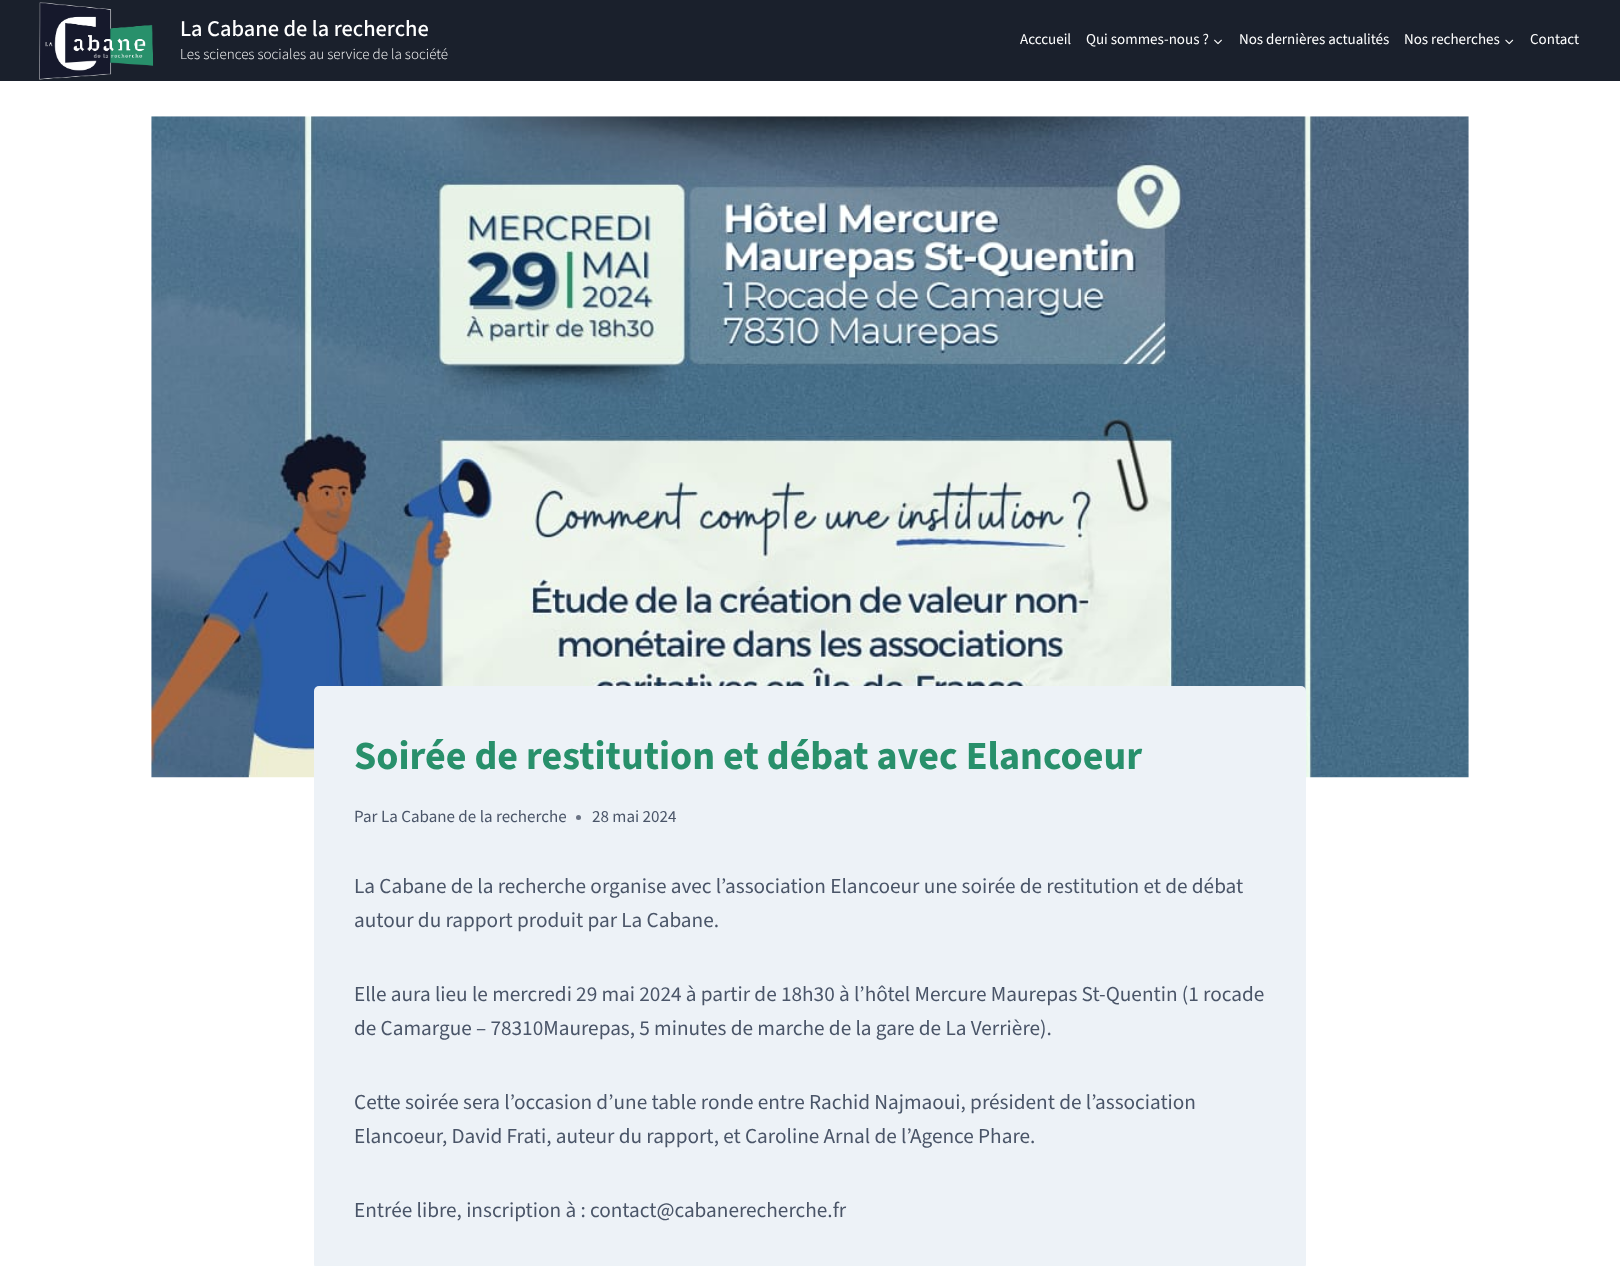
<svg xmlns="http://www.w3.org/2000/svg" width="1620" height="1266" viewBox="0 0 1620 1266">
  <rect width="100%" height="100%" fill="#ffffff"/>
  <rect x="0" y="0" width="1620" height="81" fill="#1a202c"/>
  <image x="39" y="2" width="115" height="78" href="img1.png"/>
  <text x="180" y="36" font-family="'Source Sans 3'" font-size="22.5" font-weight="500" fill="#ffffff">La Cabane de la recherche</text>
  <text x="180" y="59" font-family="'Source Sans 3'" font-size="15" font-weight="300" fill="#ffffff">Les sciences sociales au service de la société</text>
  <text x="1020" y="44" font-family="'Source Sans 3'" font-size="15" fill="#ffffff">Acccueil</text>
  <text x="1086" y="44" font-family="'Source Sans 3'" font-size="15" fill="#ffffff">Qui sommes-nous ?</text>
  <image x="1214" y="39" width="8" height="6" href="img2.png"/>
  <text x="1239" y="44" font-family="'Source Sans 3'" font-size="15" fill="#ffffff">Nos dernières actualités</text>
  <text x="1404" y="44" font-family="'Source Sans 3'" font-size="15" fill="#ffffff">Nos recherches</text>
  <image x="1505" y="39" width="9" height="6" href="img3.png"/>
  <text x="1530" y="44" font-family="'Source Sans 3'" font-size="15" fill="#ffffff">Contact</text>
  <image x="151" y="116" width="1318" height="662" href="img4.png"/>
  <rect x="314" y="686" width="992" height="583" rx="5" fill="#edf2f7"/>
  <text x="354" y="769" font-family="'Source Sans 3'" font-size="40" font-weight="bold" fill="#28906b">Soirée de restitution et débat avec Elancoeur</text>
  <text x="354" y="822" font-family="'Source Sans 3'" font-size="17" fill="#4a5568">Par</text>
  <text x="381" y="822" font-family="'Source Sans 3'" font-size="17" fill="#4a5568">La Cabane de la recherche</text>
  <circle cx="578.5" cy="817.5" r="2.5" fill="#6b7485"/>
  <text x="592" y="822" font-family="'Source Sans 3'" font-size="17" fill="#4a5568">28 mai 2024</text>
  <text x="354" y="893" font-family="'Source Sans 3'" font-size="21.25" fill="#4a5568">La Cabane de la recherche organise avec l’association Elancoeur une soirée de restitution et de débat</text>
  <text x="354" y="927" font-family="'Source Sans 3'" font-size="21.25" fill="#4a5568">autour du rapport produit par La Cabane.</text>
  <text x="354" y="1001" font-family="'Source Sans 3'" font-size="21.25" fill="#4a5568">Elle aura lieu le mercredi 29 mai 2024 à partir de 18h30 à l’hôtel Mercure Maurepas St-Quentin (1 rocade</text>
  <text x="354" y="1035" font-family="'Source Sans 3'" font-size="21.25" fill="#4a5568">de Camargue – 78310Maurepas, 5 minutes de marche de la gare de La Verrière).</text>
  <text x="354" y="1109" font-family="'Source Sans 3'" font-size="21.25" fill="#4a5568">Cette soirée sera l’occasion d’une table ronde entre Rachid Najmaoui, président de l’association</text>
  <text x="354" y="1143" font-family="'Source Sans 3'" font-size="21.25" fill="#4a5568">Elancoeur, David Frati, auteur du rapport, et Caroline Arnal de l’Agence Phare.</text>
  <text x="354" y="1217" font-family="'Source Sans 3'" font-size="21.25" fill="#4a5568">Entrée libre, inscription à : contact@cabanerecherche.fr</text>
</svg>
